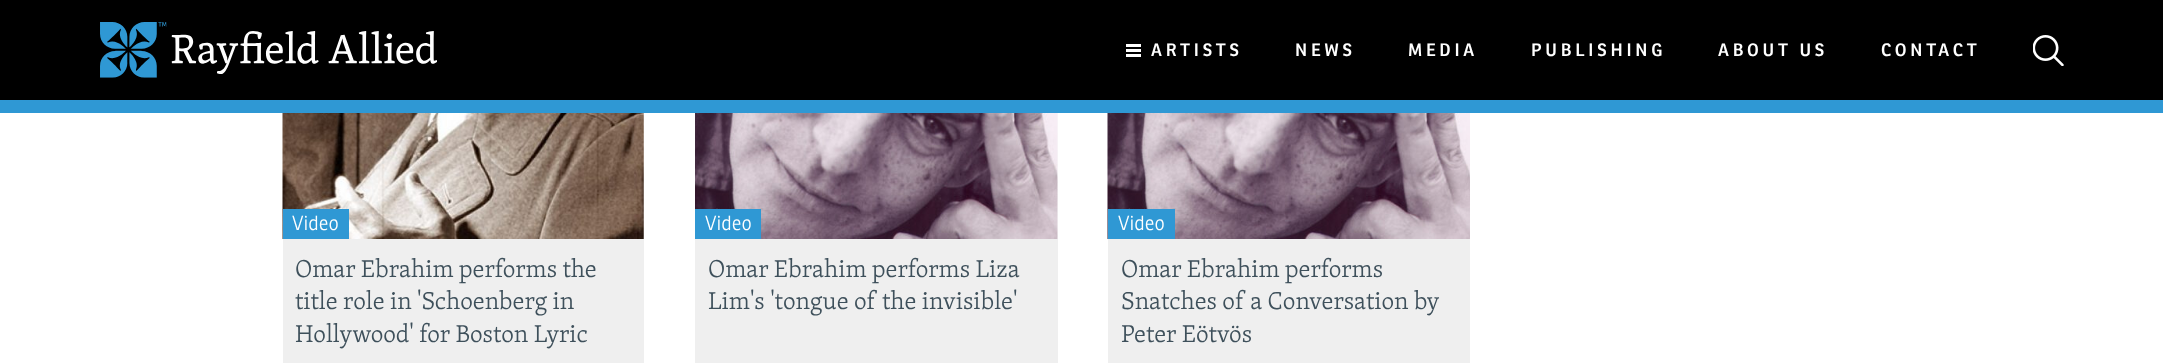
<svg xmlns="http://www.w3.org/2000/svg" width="2163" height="363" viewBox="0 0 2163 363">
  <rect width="100%" height="100%" fill="#ffffff"/>
  <rect x="0" y="0" width="2163" height="100" fill="#000000"/>
  <rect x="0" y="100" width="2163" height="13" fill="#2f98d4"/>
  <image x="100" y="22" width="337" height="56" href="img1.png"/>
  <rect x="1126" y="44" width="15" height="3" fill="#ffffff"/>
  <rect x="1126" y="54" width="15" height="3" fill="#ffffff"/>
  <rect x="1126" y="49" width="15" height="3" fill="#ffffff"/>
  <text x="1151" y="56" font-family="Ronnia" font-size="17.5" font-weight="600" letter-spacing="3.75" fill="#ffffff">ARTISTS</text>
  <text x="1295" y="56" font-family="Ronnia" font-size="17.5" font-weight="600" letter-spacing="3.75" fill="#ffffff">NEWS</text>
  <text x="1408" y="56" font-family="Ronnia" font-size="17.5" font-weight="600" letter-spacing="3.75" fill="#ffffff">MEDIA</text>
  <text x="1531" y="56" font-family="Ronnia" font-size="17.5" font-weight="600" letter-spacing="3.75" fill="#ffffff">PUBLISHING</text>
  <text x="1718" y="56" font-family="Ronnia" font-size="17.5" font-weight="600" letter-spacing="3.75" fill="#ffffff">ABOUT US</text>
  <text x="1881" y="56" font-family="Ronnia" font-size="17.5" font-weight="600" letter-spacing="3.75" fill="#ffffff">CONTACT</text>
  <image x="2033" y="35" width="31" height="31" href="img2.png"/>
  <image x="282" y="113" width="362" height="126" href="img3.png"/>
  <rect x="283" y="209" width="66" height="30" fill="#2f98d4"/>
  <text x="292" y="230" font-family="Ronnia" font-size="20" font-weight="300" fill="#ffffff">Video</text>
  <rect x="283" y="239" width="361" height="124" fill="#efefef"/>
  <text x="295" y="277" font-family="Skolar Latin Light" font-size="25" font-weight="300" fill="#3e505b">Omar Ebrahim performs the</text>
  <text x="295" y="309" font-family="Skolar Latin Light" font-size="25" font-weight="300" fill="#3e505b">title role in 'Schoenberg in</text>
  <text x="295" y="342" font-family="Skolar Latin Light" font-size="25" font-weight="300" fill="#3e505b">Hollywood' for Boston Lyric</text>
  <rect x="1057" y="113" width="1" height="126" fill="#f9f9f9"/>
  <image x="695" y="113" width="363" height="126" href="img4.png"/>
  <rect x="695" y="209" width="66" height="30" fill="#2f98d4"/>
  <text x="705" y="230" font-family="Ronnia" font-size="20" font-weight="300" fill="#ffffff">Video</text>
  <rect x="695" y="239" width="363" height="124" fill="#efefef"/>
  <text x="708" y="277" font-family="Skolar Latin Light" font-size="25" font-weight="300" fill="#3e505b">Omar Ebrahim performs Liza</text>
  <text x="708" y="309" font-family="Skolar Latin Light" font-size="25" font-weight="300" fill="#3e505b">Lim's 'tongue of the invisible'</text>
  <image x="1107" y="113" width="363" height="126" href="img5.png"/>
  <rect x="1108" y="209" width="67" height="30" fill="#2f98d4"/>
  <text x="1118" y="230" font-family="Ronnia" font-size="20" font-weight="300" fill="#ffffff">Video</text>
  <rect x="1108" y="239" width="362" height="124" fill="#efefef"/>
  <text x="1121" y="277" font-family="Skolar Latin Light" font-size="25" font-weight="300" fill="#3e505b">Omar Ebrahim performs</text>
  <text x="1121" y="309" font-family="Skolar Latin Light" font-size="25" font-weight="300" fill="#3e505b">Snatches of a Conversation by</text>
  <text x="1121" y="342" font-family="Skolar Latin Light" font-size="25" font-weight="300" fill="#3e505b">Peter Eötvös</text>
</svg>
